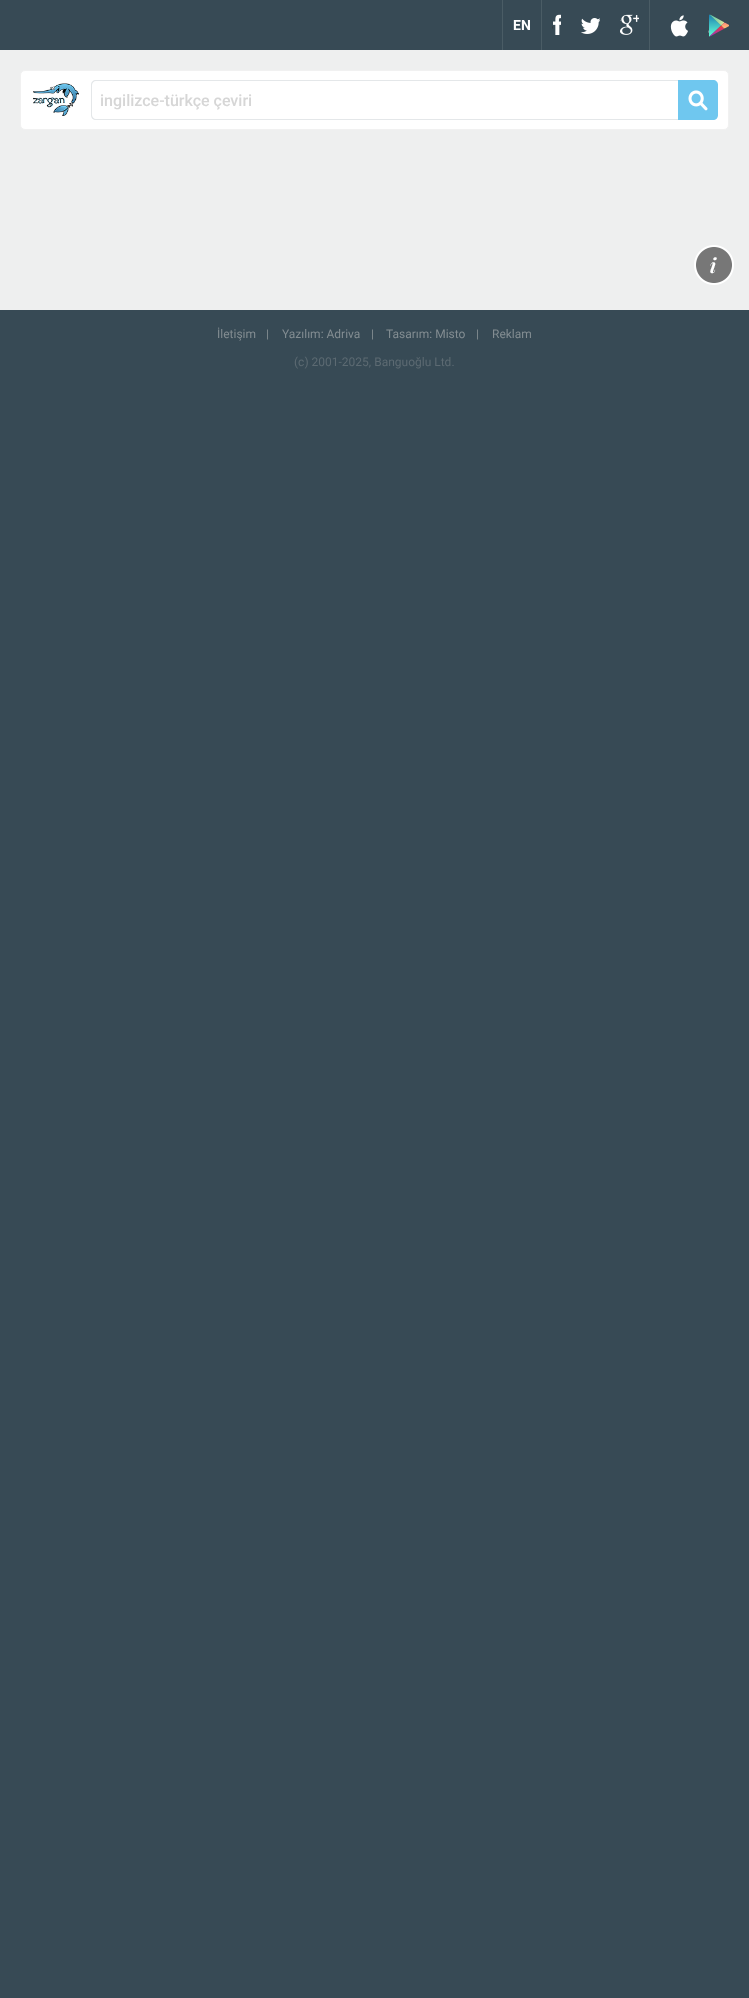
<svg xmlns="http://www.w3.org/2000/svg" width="749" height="1998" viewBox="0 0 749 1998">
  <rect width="100%" height="100%" fill="#374a55"/>
  <rect x="502" y="0" width="1" height="50" fill="#4a5c65"/>
  <text x="513" y="30" font-family="Roboto" font-size="14" font-weight="bold" fill="#ffffff">EN</text>
  <rect x="541" y="0" width="1" height="50" fill="#4a5c65"/>
  <image x="552" y="14" width="9" height="21" href="img1.png"/>
  <image x="581" y="18" width="19" height="16" href="img2.png"/>
  <image x="620" y="14" width="19" height="21" href="img3.png"/>
  <rect x="649" y="0" width="1" height="50" fill="#4a5c65"/>
  <image x="670" y="15" width="18" height="22" href="img4.png"/>
  <image x="708" y="14" width="21" height="23" href="img5.png"/>
  <rect x="0" y="50" width="749" height="260" fill="#eeefef"/>
  <rect x="20.5" y="70.5" width="708" height="59" rx="4.5" fill="#ffffff" stroke="#f1f1f1"/>
  <image x="33" y="83" width="46" height="33" href="img6.png"/>
  <path d="M96 80H705V120H96C93 120 91 118 91 115V85C91 82 93 80 96 80ZM96 81H705V119H96C94 119 92 117 92 115V85C92 83 94 81 96 81Z" fill="#e4e7e9" fill-rule="evenodd"/>
  <text x="100" y="106" font-family="Roboto" font-size="16" font-weight="500" fill="#d6d6d6">ingilizce-türkçe çeviri</text>
  <path d="M678 80H713C716 80 718 82 718 85V115C718 118 716 120 713 120H678Z" fill="#6fc7ef"/>
  <image x="688" y="90" width="20" height="21" href="img7.png"/>
  <image x="694" y="245" width="40" height="40" href="img8.png"/>
  <text x="217" y="338" font-family="Roboto" font-size="12" fill="#838d92">İletişim</text>
  <text x="266" y="338" font-family="Roboto" font-size="12" fill="#838d92">|</text>
  <text x="282" y="338" font-family="Roboto" font-size="12" fill="#838d92">Yazılım: Adriva</text>
  <text x="371" y="338" font-family="Roboto" font-size="12" fill="#838d92">|</text>
  <text x="386" y="338" font-family="Roboto" font-size="12" fill="#838d92">Tasarım: Misto</text>
  <text x="476" y="338" font-family="Roboto" font-size="12" fill="#838d92">|</text>
  <text x="492" y="338" font-family="Roboto" font-size="12" fill="#838d92">Reklam</text>
  <text x="294" y="366" font-family="Roboto" font-size="12" fill="#5c6a72">(c) 2001-2025, Banguoğlu Ltd.</text>
</svg>
